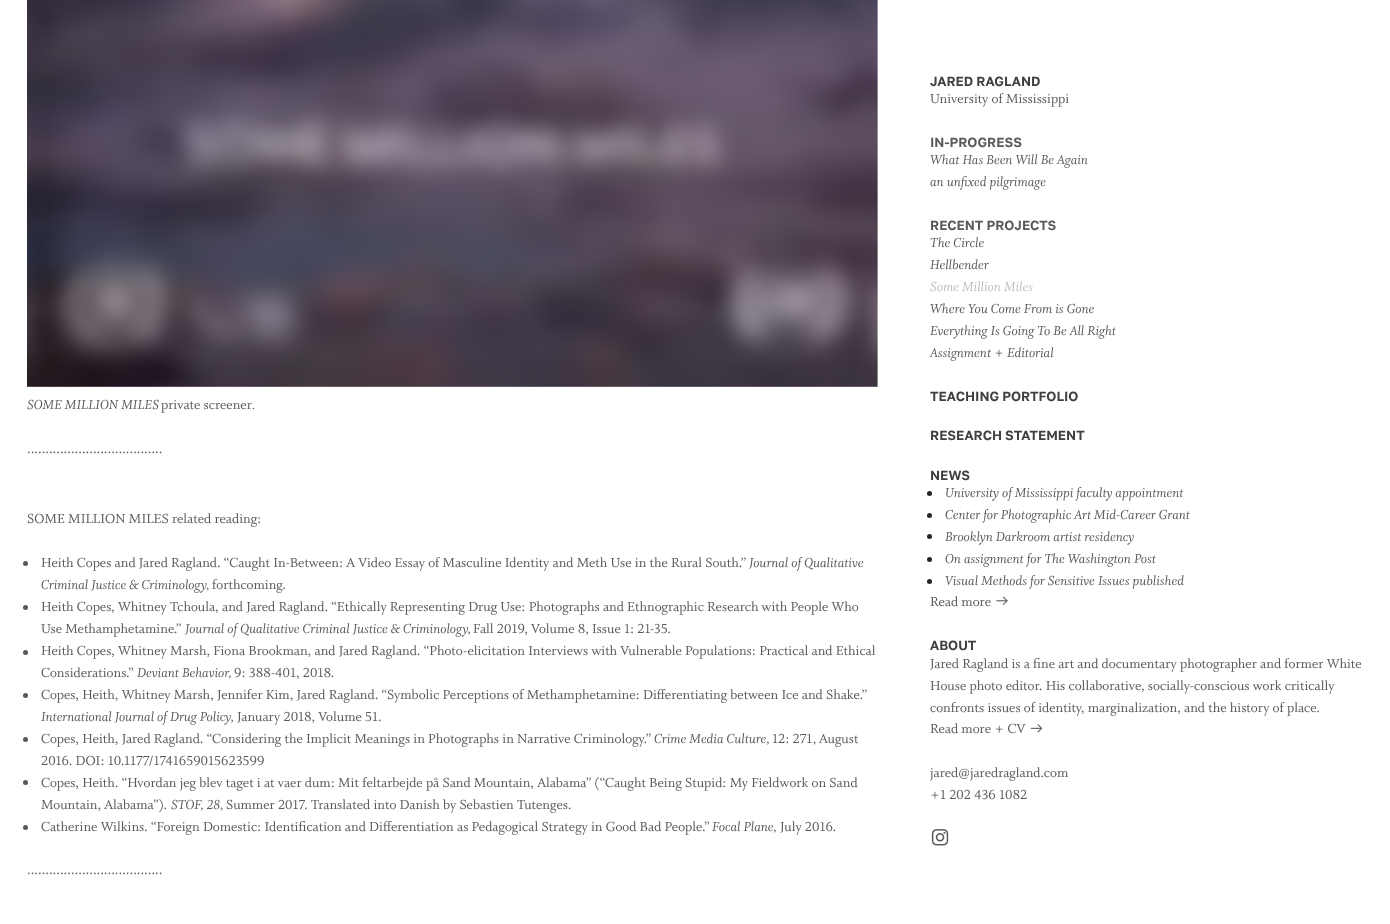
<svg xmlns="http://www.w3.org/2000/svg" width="1390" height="924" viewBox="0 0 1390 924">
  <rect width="100%" height="100%" fill="#ffffff"/>
  <image x="27" y="0" width="851" height="387" href="img1.png"/>
  <text x="27" y="409" font-family="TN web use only" font-size="14.65" font-style="italic" fill="#595959">SOME MILLION MILES</text>
  <text x="161" y="409" font-family="TN web use only" font-size="14.65" fill="#595959">private screener</text>
  <text x="252" y="409" font-family="TN web use only" font-size="14.65" font-style="italic" fill="#595959">.</text>
  <text x="27" y="453" font-family="TN web use only" font-size="14.65" fill="#595959">.....................................</text>
  <text x="27" y="523" font-family="TN web use only" font-size="14.65" fill="#595959">SOME MILLION MILES related reading:</text>
  <circle cx="25.5" cy="563.5" r="2.5" fill="#595959"/>
  <text x="41" y="567" font-family="TN web use only" font-size="14.65" fill="#595959">Heith Copes and Jared Ragland. “Caught In-Between: A Video Essay of Masculine Identity and Meth Use in the Rural South.”</text>
  <text x="749" y="567" font-family="TN web use only" font-size="14.65" font-style="italic" fill="#595959">Journal of Qualitative</text>
  <text x="41" y="589" font-family="TN web use only" font-size="14.65" font-style="italic" fill="#595959">Criminal Justice &amp; Criminology,</text>
  <text x="212" y="589" font-family="TN web use only" font-size="14.65" fill="#595959">forthcoming.</text>
  <circle cx="25.5" cy="607.5" r="2.5" fill="#595959"/>
  <text x="41" y="611" font-family="TN web use only" font-size="14.65" fill="#595959">Heith Copes, Whitney Tchoula, and Jared Ragland. “Ethically Representing Drug Use: Photographs and Ethnographic Research with People Who</text>
  <text x="41" y="633" font-family="TN web use only" font-size="14.65" fill="#595959">Use Methamphetamine.”</text>
  <text x="185" y="633" font-family="TN web use only" font-size="14.65" font-style="italic" fill="#595959">Journal of Qualitative Criminal Justice &amp; Criminology,</text>
  <text x="473" y="633" font-family="TN web use only" font-size="14.65" fill="#595959">Fall 2019, Volume 8, Issue 1: 21-35.</text>
  <circle cx="25.5" cy="652.5" r="2.5" fill="#595959"/>
  <text x="41" y="655" font-family="TN web use only" font-size="14.65" fill="#595959">Heith Copes, Whitney Marsh, Fiona Brookman, and Jared Ragland. “Photo-elicitation Interviews with Vulnerable Populations: Practical and Ethical</text>
  <text x="41" y="677" font-family="TN web use only" font-size="14.65" fill="#595959">Considerations.”</text>
  <text x="137" y="677" font-family="TN web use only" font-size="14.65" font-style="italic" fill="#595959">Deviant Behavior,</text>
  <text x="234" y="677" font-family="TN web use only" font-size="14.65" fill="#595959">9: 388-401, 2018.</text>
  <circle cx="25.5" cy="695.5" r="2.5" fill="#595959"/>
  <text x="41" y="699" font-family="TN web use only" font-size="14.65" fill="#595959">Copes, Heith, Whitney Marsh, Jennifer Kim, Jared Ragland. “Symbolic Perceptions of Methamphetamine: Differentiating between Ice and Shake.”</text>
  <text x="41" y="721" font-family="TN web use only" font-size="14.65" font-style="italic" fill="#595959">International Journal of Drug Policy,</text>
  <text x="237" y="721" font-family="TN web use only" font-size="14.65" fill="#595959">January 2018, Volume 51.</text>
  <circle cx="25.5" cy="739.5" r="2.5" fill="#595959"/>
  <text x="41" y="743" font-family="TN web use only" font-size="14.65" fill="#595959">Copes, Heith, Jared Ragland. “Considering the Implicit Meanings in Photographs in Narrative Criminology.”</text>
  <text x="654" y="743" font-family="TN web use only" font-size="14.65" font-style="italic" fill="#595959">Crime Media Culture,</text>
  <text x="772" y="743" font-family="TN web use only" font-size="14.65" fill="#595959">12: 271</text>
  <text x="819" y="743" font-family="TN web use only" font-size="14.65" fill="#595959">August</text>
  <text x="813" y="743" font-family="TN web use only" font-size="14.65" font-style="italic" fill="#595959">,</text>
  <text x="41" y="765" font-family="TN web use only" font-size="14.65" fill="#595959">2016. DOI: 10.1177/1741659015623599</text>
  <circle cx="25.5" cy="782.5" r="2.5" fill="#595959"/>
  <text x="41" y="787" font-family="TN web use only" font-size="14.65" fill="#595959">Copes, Heith. “Hvordan jeg blev taget i at vaer dum: Mit feltarbejde på Sand Mountain, Alabama” (“Caught Being Stupid: My Fieldwork on Sand</text>
  <text x="41" y="809" font-family="TN web use only" font-size="14.65" fill="#595959">Mountain, Alabama”).</text>
  <text x="171" y="809" font-family="TN web use only" font-size="14.65" font-style="italic" fill="#595959">STOF, 28,</text>
  <text x="226" y="809" font-family="TN web use only" font-size="14.65" fill="#595959">Summer 2017. Translated into Danish by Sebastien Tutenges.</text>
  <circle cx="25.5" cy="827.5" r="2.5" fill="#595959"/>
  <text x="41" y="831" font-family="TN web use only" font-size="14.65" fill="#595959">Catherine Wilkins. “Foreign Domestic: Identification and Differentiation as Pedagogical Strategy in Good Bad People.”</text>
  <text x="712" y="831" font-family="TN web use only" font-size="14.65" font-style="italic" fill="#595959">Focal Plane,</text>
  <text x="780" y="831" font-family="TN web use only" font-size="14.65" fill="#595959">July 2016.</text>
  <text x="27" y="874" font-family="TN web use only" font-size="14.65" fill="#595959">.....................................</text>
  <text x="930" y="86" font-family="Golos" font-size="13.25" font-weight="600" fill="#404040">JARED RAGLAND</text>
  <text x="930" y="103" font-family="TN web use only" font-size="14.65" fill="#595959">University of Mississippi</text>
  <text x="930" y="147" font-family="Golos" font-size="13.25" font-weight="600" fill="#595959">IN-PROGRESS</text>
  <text x="930" y="164" font-family="TN web use only" font-size="14.65" font-style="italic" fill="#595959">What Has Been Will Be Again</text>
  <text x="930" y="186" font-family="TN web use only" font-size="14.65" font-style="italic" fill="#595959">an unfixed pilgrimage</text>
  <text x="930" y="230" font-family="Golos" font-size="13.25" font-weight="600" fill="#595959">RECENT PROJECTS</text>
  <text x="930" y="247" font-family="TN web use only" font-size="14.65" font-style="italic" fill="#595959">The Circle</text>
  <text x="930" y="269" font-family="TN web use only" font-size="14.65" font-style="italic" fill="#595959">Hellbender</text>
  <text x="930" y="291" font-family="TN web use only" font-size="14.65" font-style="italic" fill="#bdbdbd">Some Million Miles</text>
  <text x="930" y="313" font-family="TN web use only" font-size="14.65" font-style="italic" fill="#595959">Where You Come From is Gone</text>
  <text x="930" y="335" font-family="TN web use only" font-size="14.65" font-style="italic" fill="#595959">Everything Is Going To Be All Right</text>
  <text x="930" y="357" font-family="TN web use only" font-size="14.65" font-style="italic" fill="#595959">Assignment + Editorial</text>
  <text x="930" y="401" font-family="Golos" font-size="13.25" font-weight="600" fill="#404040">TEACHING PORTFOLIO</text>
  <text x="930" y="440" font-family="Golos" font-size="13.25" font-weight="600" fill="#404040">RESEARCH STATEMENT</text>
  <text x="930" y="480" font-family="Golos" font-size="13.25" font-weight="600" fill="#404040">NEWS</text>
  <circle cx="929.5" cy="493.5" r="2.5" fill="#262626"/>
  <text x="945" y="497" font-family="TN web use only" font-size="14.65" font-style="italic" fill="#595959">University of Mississippi faculty appointment</text>
  <circle cx="929.5" cy="515.5" r="2.5" fill="#262626"/>
  <text x="945" y="519" font-family="TN web use only" font-size="14.65" font-style="italic" fill="#595959">Center for Photographic Art Mid-Career Grant</text>
  <circle cx="929.5" cy="536.5" r="2.5" fill="#262626"/>
  <text x="945" y="541" font-family="TN web use only" font-size="14.65" font-style="italic" fill="#595959">Brooklyn Darkroom artist residency</text>
  <circle cx="929.5" cy="559.5" r="2.5" fill="#262626"/>
  <text x="945" y="563" font-family="TN web use only" font-size="14.65" font-style="italic" fill="#595959">On assignment for The Washington Post</text>
  <circle cx="929.5" cy="581.5" r="2.5" fill="#262626"/>
  <text x="945" y="585" font-family="TN web use only" font-size="14.65" font-style="italic" fill="#595959">Visual Methods for Sensitive Issues published</text>
  <text x="930" y="606" font-family="TN web use only" font-size="14.65" fill="#595959">Read more</text>
  <image x="996" y="596" width="12" height="9" href="img2.png"/>
  <text x="930" y="650" font-family="Golos" font-size="13.25" font-weight="600" fill="#404040">ABOUT</text>
  <text x="930" y="668" font-family="TN web use only" font-size="14.65" fill="#595959">Jared Ragland is a fine art and documentary photographer and former White</text>
  <text x="930" y="690" font-family="TN web use only" font-size="14.65" fill="#595959">House photo editor. His collaborative, socially-conscious work critically</text>
  <text x="930" y="712" font-family="TN web use only" font-size="14.65" fill="#595959">confronts issues of identity, marginalization, and the history of place.</text>
  <text x="930" y="733" font-family="TN web use only" font-size="14.65" fill="#595959">Read more + CV</text>
  <image x="1030" y="724" width="13" height="9" href="img3.png"/>
  <text x="930" y="777" font-family="TN web use only" font-size="14.65" fill="#595959">jared@jaredragland.com</text>
  <text x="930" y="799" font-family="TN web use only" font-size="14.65" fill="#595959">+1 202 436 1082</text>
  <image x="931" y="829" width="18" height="17" href="img4.png"/>
</svg>
